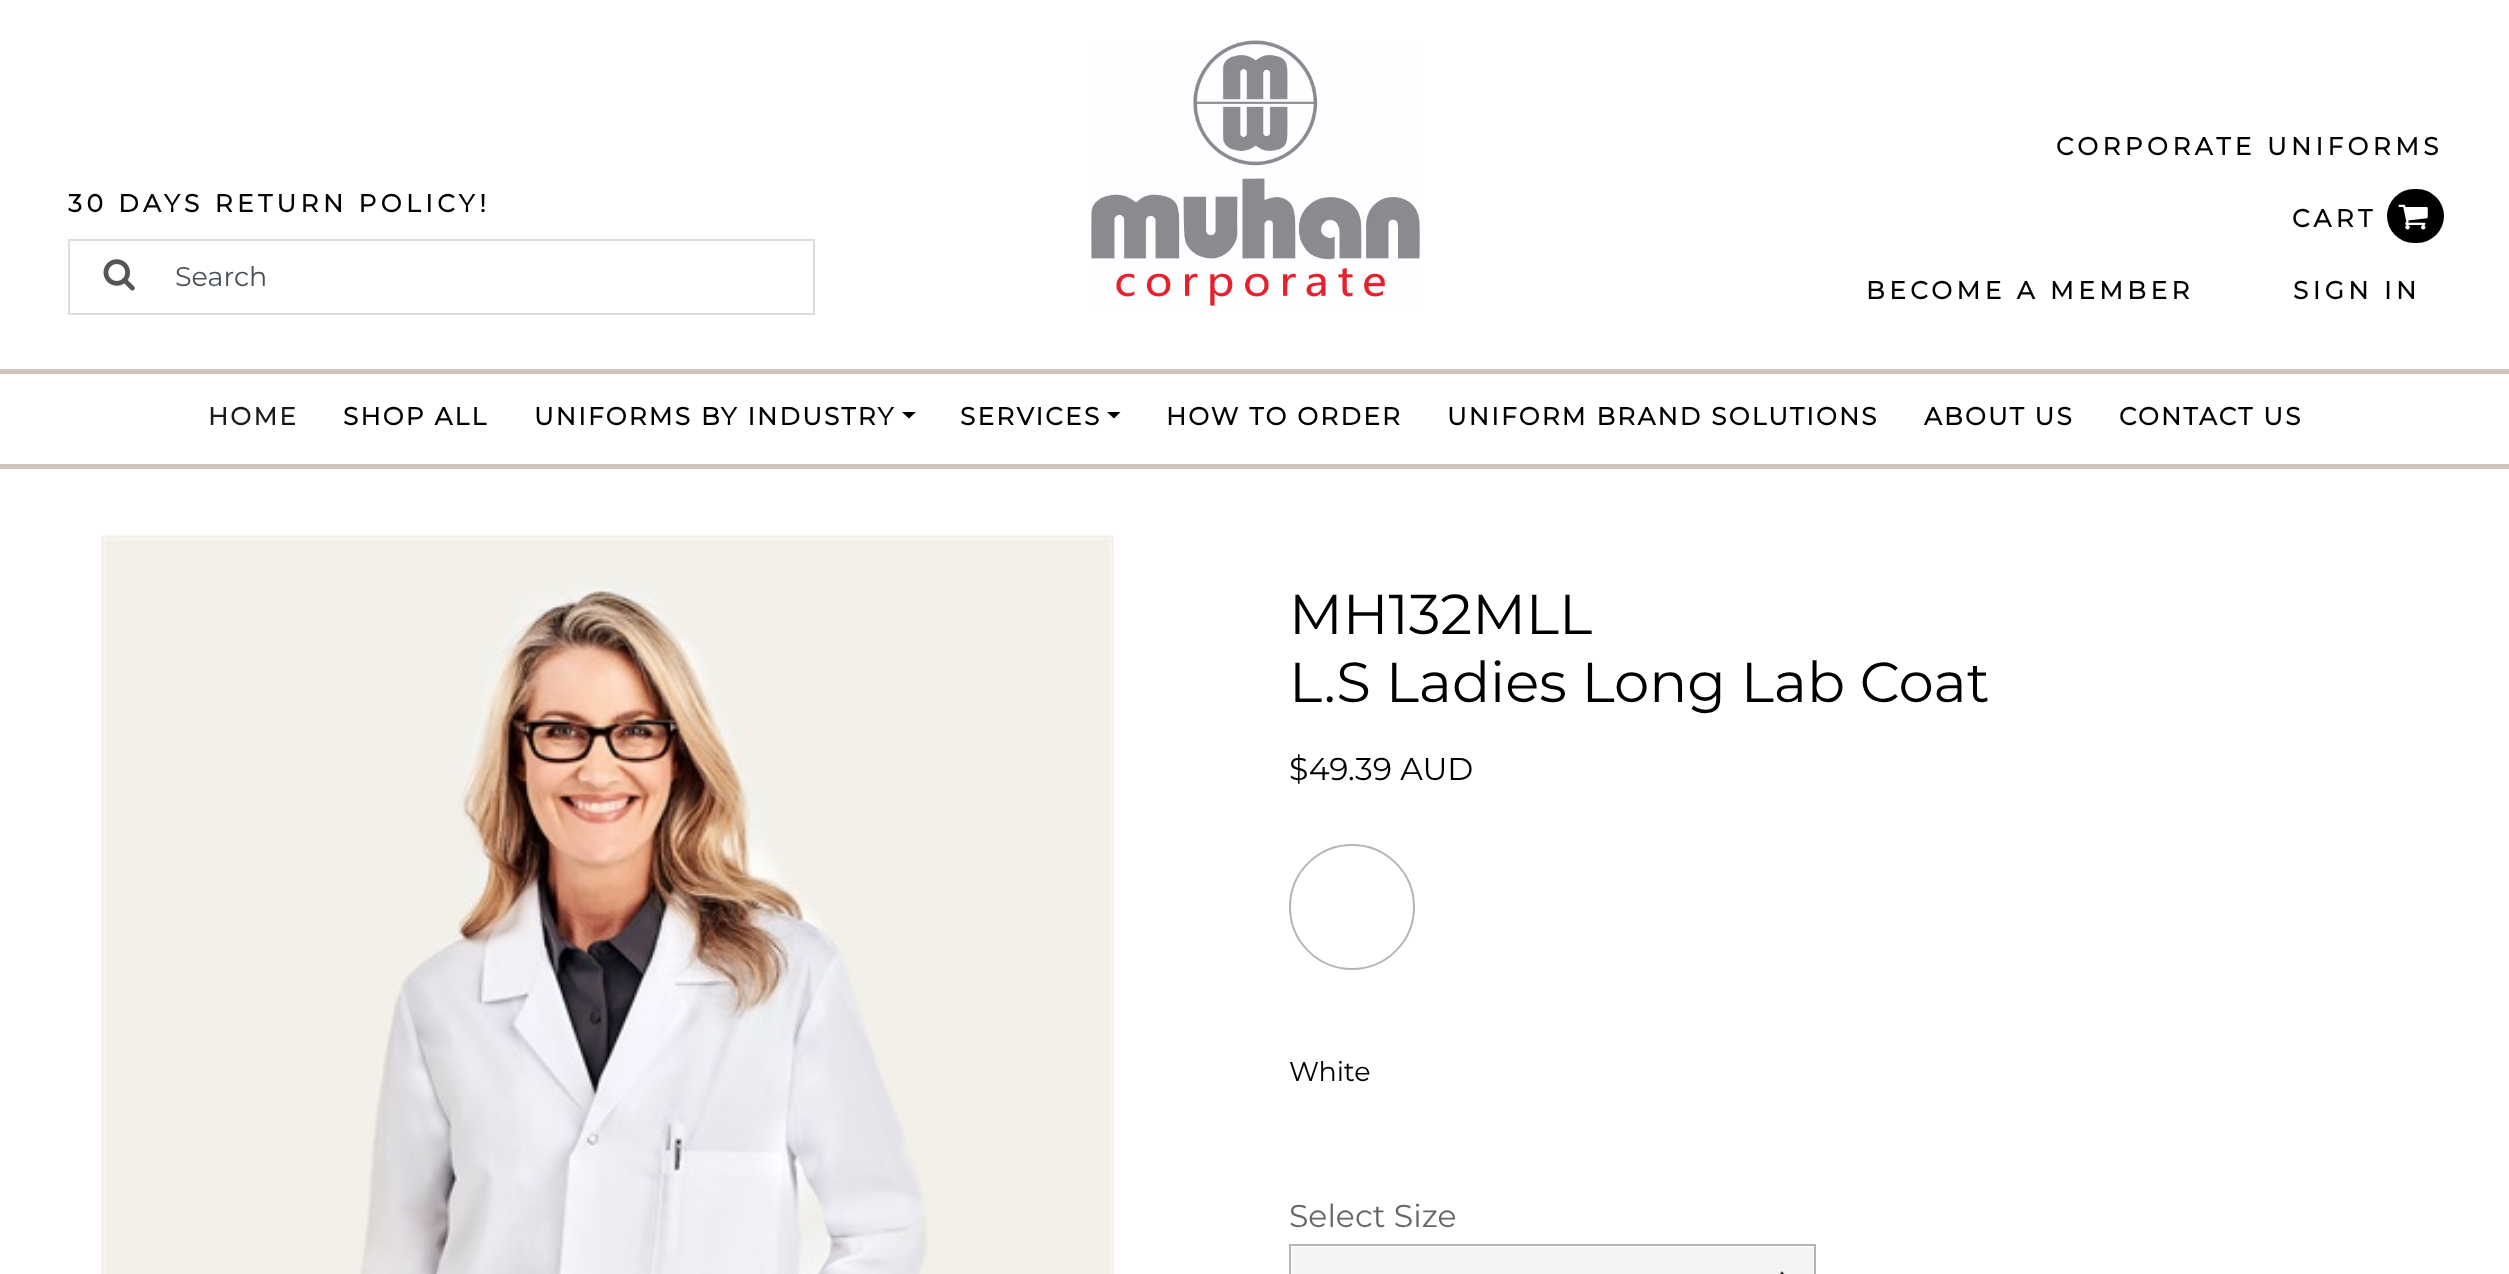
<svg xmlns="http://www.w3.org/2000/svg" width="2509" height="1274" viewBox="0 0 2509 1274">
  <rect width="100%" height="100%" fill="#ffffff"/>
  <text x="68" y="212" font-family="Montserrat" font-size="24.75" font-weight="bold" letter-spacing="4.5" fill="#000000">30 DAYS RETURN POLICY!</text>
  <rect x="69" y="240" width="745" height="74" fill="none" stroke="#dddddd" stroke-width="2"/>
  <image x="103" y="259" width="32" height="32" href="img1.png"/>
  <text x="175" y="286" font-family="Montserrat" font-size="27" fill="#495057">Search</text>
  <image x="1091" y="40" width="329" height="266" href="img2.png"/>
  <text x="2056" y="155" font-family="Montserrat" font-size="24.75" font-weight="bold" letter-spacing="4.5" fill="#000000">CORPORATE UNIFORMS</text>
  <text x="2292" y="227" font-family="Montserrat" font-size="24.75" font-weight="bold" letter-spacing="4.5" fill="#000000">CART</text>
  <rect x="2387" y="189" width="57" height="54" rx="27" fill="#000000"/>
  <image x="2398" y="204" width="30" height="26" href="img3.png"/>
  <text x="1866" y="299" font-family="Montserrat" font-size="24.75" font-weight="bold" letter-spacing="4.5" fill="#000000">BECOME A MEMBER</text>
  <text x="2293" y="299" font-family="Montserrat" font-size="24.75" font-weight="bold" letter-spacing="4.5" fill="#000000">SIGN IN</text>
  <rect x="0" y="369" width="2509" height="5" fill="#cfc5bb"/>
  <rect x="0" y="464" width="2509" height="5" fill="#cfc5bb"/>
  <text x="208" y="425" font-family="Montserrat" font-size="24.75" font-weight="bold" letter-spacing="2.25" fill="#1a1a1a">HOME</text>
  <text x="343" y="425" font-family="Montserrat" font-size="24.75" font-weight="bold" letter-spacing="2.25" fill="#000000">SHOP ALL</text>
  <text x="534" y="425" font-family="Montserrat" font-size="24.75" font-weight="bold" letter-spacing="2.25" fill="#000000">UNIFORMS BY INDUSTRY</text>
  <path d="M902 412H916L909 418.5Z" fill="#000000"/>
  <text x="960" y="425" font-family="Montserrat" font-size="24.75" font-weight="bold" letter-spacing="2.25" fill="#000000">SERVICES</text>
  <path d="M1107 412H1120.5L1114 418.5Z" fill="#000000"/>
  <text x="1166" y="425" font-family="Montserrat" font-size="24.75" font-weight="bold" letter-spacing="2.25" fill="#000000">HOW TO ORDER</text>
  <text x="1447" y="425" font-family="Montserrat" font-size="24.75" font-weight="bold" letter-spacing="2.25" fill="#000000">UNIFORM BRAND SOLUTIONS</text>
  <text x="1924" y="425" font-family="Montserrat" font-size="24.75" font-weight="bold" letter-spacing="2.25" fill="#000000">ABOUT US</text>
  <text x="2119" y="425" font-family="Montserrat" font-size="24.75" font-weight="bold" letter-spacing="2.25" fill="#000000">CONTACT US</text>
  <image x="101" y="535" width="1013" height="739" href="img4.png"/>
  <text x="1289" y="634" font-family="Montserrat" font-size="56.25" fill="#000000">MH132MLL</text>
  <text x="1289" y="702" font-family="Montserrat" font-size="56.25" fill="#000000">L.S Ladies Long Lab Coat</text>
  <text x="1289" y="780" font-family="Montserrat" font-size="31.5" fill="#000000">$49.39 AUD</text>
  <circle cx="1352" cy="907" r="62" fill="none" stroke="#b5b5b5" stroke-width="2"/>
  <text x="1289" y="1081" font-family="Montserrat" font-size="27" fill="#000000">White</text>
  <text x="1289" y="1227" font-family="Montserrat" font-size="31.5" fill="#666666">Select Size</text>
  <rect x="1292" y="1247" width="522" height="27" fill="#f4f4f4"/>
  <image x="1780" y="1271" width="5" height="3" href="img5.png"/>
  <rect x="1290" y="1245" width="525" height="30" fill="none" stroke="#b5b5b5" stroke-width="2"/>
</svg>
